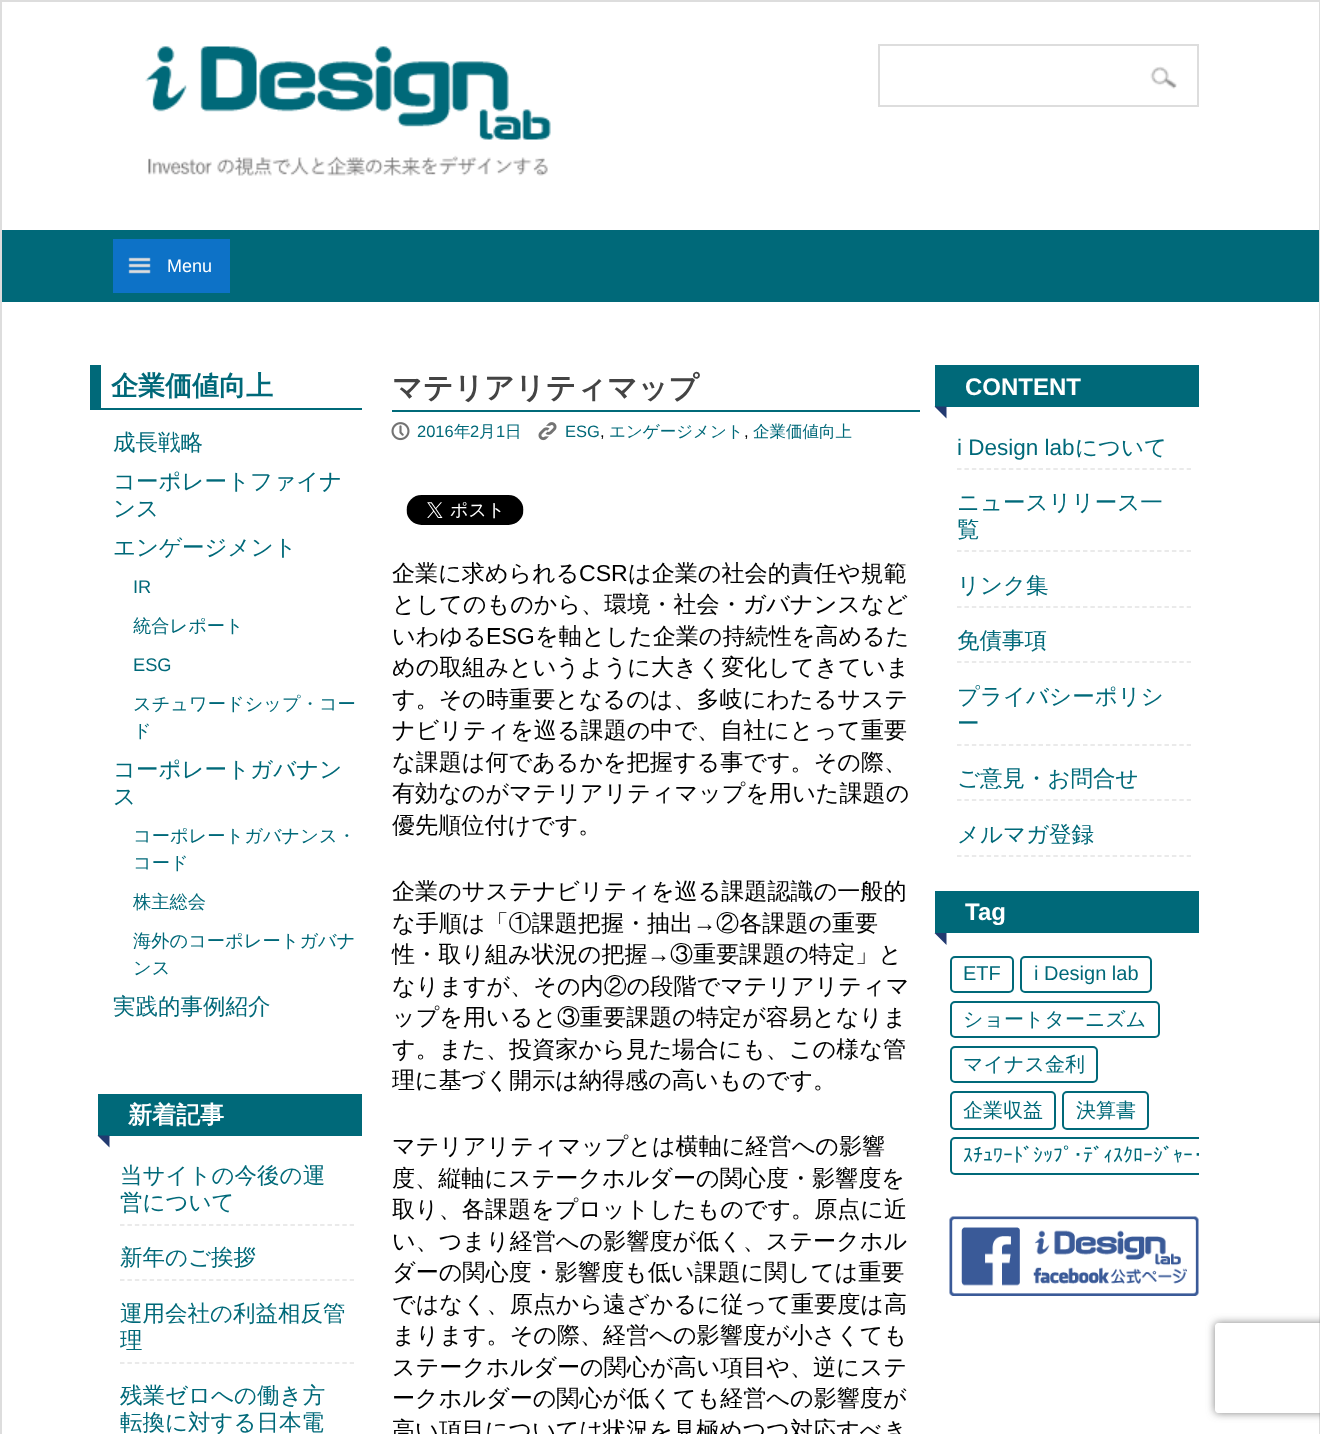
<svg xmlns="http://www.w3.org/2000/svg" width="1320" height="1434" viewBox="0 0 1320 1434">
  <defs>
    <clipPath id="clip1"><rect x="950" y="956" width="249" height="226"/></clipPath>
    <clipPath id="clip2"><path d="M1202 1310H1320V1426H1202ZM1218 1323H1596C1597.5 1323 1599 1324.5 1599 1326V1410C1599 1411.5 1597.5 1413 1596 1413H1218C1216.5 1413 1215 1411.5 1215 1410V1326C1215 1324.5 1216.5 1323 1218 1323Z" clip-rule="evenodd"/></clipPath>
    <filter id="blur1" x="-50%" y="-200%" width="200%" height="500%"><feGaussianBlur stdDeviation="4"/></filter>
  </defs>
  <rect width="100%" height="100%" fill="#ffffff"/>
  <rect x="1" y="1" width="1318" height="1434" fill="none" stroke="#dddddd" stroke-width="2"/>
  <rect x="1318" y="2" width="1" height="1432" fill="#ffffff"/>
  <image x="145" y="46" width="406" height="130" href="img1.png"/>
  <rect x="879" y="45" width="319" height="61" fill="none" stroke="#dddddd" stroke-width="2"/>
  <image x="1150" y="66" width="27" height="23" href="img2.png"/>
  <rect x="2" y="230" width="1317" height="72" fill="#006979"/>
  <rect x="113" y="239" width="117" height="54" fill="#0d72c7"/>
  <image x="128" y="257" width="23" height="17" href="img3.png"/>
  <text x="167" y="272" font-family="Liberation Sans" font-size="18" fill="#ffffff">Menu</text>
  <rect x="101" y="408" width="261" height="2" fill="#006979"/>
  <rect x="90" y="365" width="11" height="45" fill="#006979"/>
  <text x="111" y="395" font-family="WenQuanYi Zen Hei" font-size="27" font-weight="bold" fill="#006979">企業価値向上</text>
  <text x="113" y="450" font-family="WenQuanYi Zen Hei" font-size="22.5" font-weight="500" fill="#006979">成長戦略</text>
  <text x="113" y="489" font-family="WenQuanYi Zen Hei" font-size="22.5" font-weight="500" fill="#006979">コーポレートファイナ</text>
  <text x="113" y="516" font-family="WenQuanYi Zen Hei" font-size="22.5" font-weight="500" fill="#006979">ンス</text>
  <text x="113" y="555" font-family="WenQuanYi Zen Hei" font-size="22.5" font-weight="500" fill="#006979">エンゲージメント</text>
  <text x="133" y="593" font-family="Liberation Sans" font-size="18.25" fill="#006979">IR</text>
  <text x="133" y="632" font-family="WenQuanYi Zen Hei" font-size="18.25" font-weight="500" fill="#006979">統合レポート</text>
  <text x="133" y="671" font-family="Liberation Sans" font-size="18.25" fill="#006979">ESG</text>
  <text x="133" y="710" font-family="WenQuanYi Zen Hei" font-size="18.25" font-weight="500" fill="#006979">スチュワードシップ・コー</text>
  <text x="133" y="737" font-family="WenQuanYi Zen Hei" font-size="18.25" font-weight="500" fill="#006979">ド</text>
  <text x="113" y="777" font-family="WenQuanYi Zen Hei" font-size="22.5" font-weight="500" fill="#006979">コーポレートガバナン</text>
  <text x="113" y="804" font-family="WenQuanYi Zen Hei" font-size="22.5" font-weight="500" fill="#006979">ス</text>
  <text x="133" y="842" font-family="WenQuanYi Zen Hei" font-size="18.25" font-weight="500" fill="#006979">コーポレートガバナンス・</text>
  <text x="133" y="869" font-family="WenQuanYi Zen Hei" font-size="18.25" font-weight="500" fill="#006979">コード</text>
  <text x="133" y="908" font-family="WenQuanYi Zen Hei" font-size="18.25" font-weight="500" fill="#006979">株主総会</text>
  <text x="133" y="947" font-family="WenQuanYi Zen Hei" font-size="18.25" font-weight="500" fill="#006979">海外のコーポレートガバナ</text>
  <text x="133" y="974" font-family="WenQuanYi Zen Hei" font-size="18.25" font-weight="500" fill="#006979">ンス</text>
  <text x="113" y="1014" font-family="WenQuanYi Zen Hei" font-size="22.5" font-weight="500" fill="#006979">実践的事例紹介</text>
  <rect x="98" y="1094" width="264" height="42" fill="#006979"/>
  <text x="128" y="1123" font-family="WenQuanYi Zen Hei" font-size="24" font-weight="bold" fill="#ffffff">新着記事</text>
  <path d="M109.5 1135.5V1147.5L97.5 1135.5Z" fill="#223a70"/>
  <path d="M120 1225H354" fill="none" stroke="#e4e4e4" stroke-width="1.5" stroke-dasharray="4.5 2.91"/>
  <text x="120" y="1183" font-family="WenQuanYi Zen Hei" font-size="22.5" font-weight="500" fill="#006979">当サイトの今後の運</text>
  <text x="120" y="1210" font-family="WenQuanYi Zen Hei" font-size="22.5" font-weight="500" fill="#006979">営について</text>
  <path d="M120 1280H354" fill="none" stroke="#e4e4e4" stroke-width="1.5" stroke-dasharray="4.5 2.91"/>
  <text x="120" y="1265" font-family="WenQuanYi Zen Hei" font-size="22.5" font-weight="500" fill="#006979">新年のご挨拶</text>
  <path d="M120 1363H354" fill="none" stroke="#e4e4e4" stroke-width="1.5" stroke-dasharray="4.5 2.91"/>
  <text x="120" y="1321" font-family="WenQuanYi Zen Hei" font-size="22.5" font-weight="500" fill="#006979">運用会社の利益相反管</text>
  <text x="120" y="1348" font-family="WenQuanYi Zen Hei" font-size="22.5" font-weight="500" fill="#006979">理</text>
  <text x="120" y="1403" font-family="WenQuanYi Zen Hei" font-size="22.5" font-weight="500" fill="#006979">残業ゼロへの働き方</text>
  <text x="120" y="1430" font-family="WenQuanYi Zen Hei" font-size="22.5" font-weight="500" fill="#006979">転換に対する日本電</text>
  <rect x="392" y="410" width="528" height="2" fill="#006a79"/>
  <text x="392" y="398" font-family="WenQuanYi Zen Hei" font-size="30" font-weight="bold" fill="#444444">マテリアリティマップ</text>
  <image x="391" y="422" width="19" height="19" href="img4.png"/>
  <text x="417" y="437" font-family="Liberation Sans" font-size="16.5" fill="#006979">2016</text>
  <text x="454" y="437" font-family="WenQuanYi Zen Hei" font-size="16.5" font-weight="500" fill="#006979">年</text>
  <text x="470" y="437" font-family="Liberation Sans" font-size="16.5" fill="#006979">2</text>
  <text x="479" y="437" font-family="WenQuanYi Zen Hei" font-size="16.5" font-weight="500" fill="#006979">月</text>
  <text x="496" y="437" font-family="Liberation Sans" font-size="16.5" fill="#006979">1</text>
  <text x="505" y="437" font-family="WenQuanYi Zen Hei" font-size="16.5" font-weight="500" fill="#006979">日</text>
  <image x="538" y="422" width="19" height="19" href="img5.png"/>
  <text x="565" y="437" font-family="Liberation Sans" font-size="16.5" fill="#006979">ESG</text>
  <text x="600" y="437" font-family="Liberation Sans" font-size="16.5" fill="#000000">,</text>
  <text x="609" y="437" font-family="WenQuanYi Zen Hei" font-size="16.5" font-weight="500" fill="#006979">エンゲージメント</text>
  <text x="744" y="437" font-family="Liberation Sans" font-size="16.5" fill="#000000">,</text>
  <text x="753" y="437" font-family="WenQuanYi Zen Hei" font-size="16.5" font-weight="500" fill="#006979">企業価値向上</text>
  <image x="406" y="495" width="118" height="30" href="img6.png"/>
  <text x="392" y="581" font-family="WenQuanYi Zen Hei" font-size="23.1" font-weight="500" fill="#000000">企業に求められる</text>
  <text x="579" y="581" font-family="Liberation Sans" font-size="23.1" fill="#000000">CSR</text>
  <text x="628" y="581" font-family="WenQuanYi Zen Hei" font-size="23.1" font-weight="500" fill="#000000">は企業の社会的責任や規範</text>
  <text x="392" y="612" font-family="WenQuanYi Zen Hei" font-size="23.1" font-weight="500" fill="#000000">としてのものから、環境・社会・ガバナンスなど</text>
  <text x="392" y="644" font-family="WenQuanYi Zen Hei" font-size="23.1" font-weight="500" fill="#000000">いわゆる</text>
  <text x="486" y="644" font-family="Liberation Sans" font-size="23.1" fill="#000000">ESG</text>
  <text x="535" y="644" font-family="WenQuanYi Zen Hei" font-size="23.1" font-weight="500" fill="#000000">を軸とした企業の持続性を高めるた</text>
  <text x="392" y="675" font-family="WenQuanYi Zen Hei" font-size="23.1" font-weight="500" fill="#000000">めの取組みというように大きく変化してきていま</text>
  <text x="392" y="707" font-family="WenQuanYi Zen Hei" font-size="23.1" font-weight="500" fill="#000000">す。その時重要となるのは、多岐にわたるサステ</text>
  <text x="392" y="738" font-family="WenQuanYi Zen Hei" font-size="23.1" font-weight="500" fill="#000000">ナビリティを巡る課題の中で、自社にとって重要</text>
  <text x="392" y="770" font-family="WenQuanYi Zen Hei" font-size="23.1" font-weight="500" fill="#000000">な課題は何であるかを把握する事です。その際、</text>
  <text x="392" y="801" font-family="WenQuanYi Zen Hei" font-size="23.1" font-weight="500" fill="#000000">有効なのがマテリアリティマップを用いた課題の</text>
  <text x="392" y="833" font-family="WenQuanYi Zen Hei" font-size="23.1" font-weight="500" fill="#000000">優先順位付けです。</text>
  <text x="392" y="899" font-family="WenQuanYi Zen Hei" font-size="23.1" font-weight="500" fill="#000000">企業のサステナビリティを巡る課題認識の一般的</text>
  <text x="392" y="931" font-family="WenQuanYi Zen Hei" font-size="23.1" font-weight="500" fill="#000000">な手順は「①課題把握・抽出</text>
  <text x="693" y="931" font-family="Liberation Sans" font-size="23.1" fill="#000000">→</text>
  <text x="716" y="931" font-family="WenQuanYi Zen Hei" font-size="23.1" font-weight="500" fill="#000000">②各課題の重要</text>
  <text x="392" y="962" font-family="WenQuanYi Zen Hei" font-size="23.1" font-weight="500" fill="#000000">性・取り組み状況の把握</text>
  <text x="647" y="962" font-family="Liberation Sans" font-size="23.1" fill="#000000">→</text>
  <text x="670" y="962" font-family="WenQuanYi Zen Hei" font-size="23.1" font-weight="500" fill="#000000">③重要課題の特定」と</text>
  <text x="392" y="994" font-family="WenQuanYi Zen Hei" font-size="23.1" font-weight="500" fill="#000000">なりますが、その内②の段階でマテリアリティマ</text>
  <text x="392" y="1025" font-family="WenQuanYi Zen Hei" font-size="23.1" font-weight="500" fill="#000000">ップを用いると③重要課題の特定が容易となりま</text>
  <text x="392" y="1057" font-family="WenQuanYi Zen Hei" font-size="23.1" font-weight="500" fill="#000000">す。また、投資家から見た場合にも、この様な管</text>
  <text x="392" y="1088" font-family="WenQuanYi Zen Hei" font-size="23.1" font-weight="500" fill="#000000">理に基づく開示は納得感の高いものです。</text>
  <text x="392" y="1154" font-family="WenQuanYi Zen Hei" font-size="23.1" font-weight="500" fill="#000000">マテリアリティマップとは横軸に経営への影響</text>
  <text x="392" y="1186" font-family="WenQuanYi Zen Hei" font-size="23.1" font-weight="500" fill="#000000">度、縦軸にステークホルダーの関心度・影響度を</text>
  <text x="392" y="1217" font-family="WenQuanYi Zen Hei" font-size="23.1" font-weight="500" fill="#000000">取り、各課題をプロットしたものです。原点に近</text>
  <text x="392" y="1249" font-family="WenQuanYi Zen Hei" font-size="23.1" font-weight="500" fill="#000000">い、つまり経営への影響度が低く、ステークホル</text>
  <text x="392" y="1280" font-family="WenQuanYi Zen Hei" font-size="23.1" font-weight="500" fill="#000000">ダーの関心度・影響度も低い課題に関しては重要</text>
  <text x="392" y="1312" font-family="WenQuanYi Zen Hei" font-size="23.1" font-weight="500" fill="#000000">ではなく、原点から遠ざかるに従って重要度は高</text>
  <text x="392" y="1343" font-family="WenQuanYi Zen Hei" font-size="23.1" font-weight="500" fill="#000000">まります。その際、経営への影響度が小さくても</text>
  <text x="392" y="1375" font-family="WenQuanYi Zen Hei" font-size="23.1" font-weight="500" fill="#000000">ステークホルダーの関心が高い項目や、逆にステ</text>
  <text x="392" y="1406" font-family="WenQuanYi Zen Hei" font-size="23.1" font-weight="500" fill="#000000">ークホルダーの関心が低くても経営への影響度が</text>
  <text x="392" y="1438" font-family="WenQuanYi Zen Hei" font-size="23.1" font-weight="500" fill="#000000">高い項目については状況を見極めつつ対応すべき</text>
  <rect x="935" y="365" width="264" height="42" fill="#006979"/>
  <text x="965" y="395" font-family="Liberation Sans" font-size="24" font-weight="bold" fill="#ffffff">CONTENT</text>
  <path d="M946.5 406.5V418.5L934.5 406.5Z" fill="#223a70"/>
  <path d="M957 469H1191" fill="none" stroke="#e4e4e4" stroke-width="1.5" stroke-dasharray="4.5 2.91"/>
  <text x="957" y="455" font-family="Liberation Sans" font-size="22.5" fill="#006979">i Design lab</text>
  <text x="1075" y="455" font-family="WenQuanYi Zen Hei" font-size="22.5" font-weight="500" fill="#006979">について</text>
  <path d="M957 551H1191" fill="none" stroke="#e4e4e4" stroke-width="1.5" stroke-dasharray="4.5 2.91"/>
  <text x="957" y="510" font-family="WenQuanYi Zen Hei" font-size="22.5" font-weight="500" fill="#006979">ニュースリリース一</text>
  <text x="957" y="537" font-family="WenQuanYi Zen Hei" font-size="22.5" font-weight="500" fill="#006979">覧</text>
  <path d="M957 607H1191" fill="none" stroke="#e4e4e4" stroke-width="1.5" stroke-dasharray="4.5 2.91"/>
  <text x="957" y="593" font-family="WenQuanYi Zen Hei" font-size="22.5" font-weight="500" fill="#006979">リンク集</text>
  <path d="M957 662H1191" fill="none" stroke="#e4e4e4" stroke-width="1.5" stroke-dasharray="4.5 2.91"/>
  <text x="957" y="648" font-family="WenQuanYi Zen Hei" font-size="22.5" font-weight="500" fill="#006979">免債事項</text>
  <path d="M957 745H1191" fill="none" stroke="#e4e4e4" stroke-width="1.5" stroke-dasharray="4.5 2.91"/>
  <text x="957" y="704" font-family="WenQuanYi Zen Hei" font-size="22.5" font-weight="500" fill="#006979">プライバシーポリシ</text>
  <text x="957" y="731" font-family="WenQuanYi Zen Hei" font-size="22.5" font-weight="500" fill="#006979">ー</text>
  <path d="M957 800H1191" fill="none" stroke="#e4e4e4" stroke-width="1.5" stroke-dasharray="4.5 2.91"/>
  <text x="957" y="786" font-family="WenQuanYi Zen Hei" font-size="22.5" font-weight="500" fill="#006979">ご意見・お問合せ</text>
  <path d="M957 856H1191" fill="none" stroke="#e4e4e4" stroke-width="1.5" stroke-dasharray="4.5 2.91"/>
  <text x="957" y="842" font-family="WenQuanYi Zen Hei" font-size="22.5" font-weight="500" fill="#006979">メルマガ登録</text>
  <rect x="935" y="891" width="264" height="42" fill="#006979"/>
  <text x="965" y="920" font-family="Liberation Sans" font-size="24" font-weight="bold" fill="#ffffff">Tag</text>
  <path d="M946.5 933V945L934.5 933Z" fill="#223a70"/>
  <rect x="951" y="957" width="62" height="35" rx="4" fill="none" stroke="#006979" stroke-width="2"/>
  <text x="963" y="980" font-family="Liberation Sans" font-size="20" fill="#006979">ETF</text>
  <rect x="1021" y="957" width="130" height="35" rx="4" fill="none" stroke="#006979" stroke-width="2"/>
  <text x="1034" y="980" font-family="Liberation Sans" font-size="20" fill="#006979">i Design lab</text>
  <rect x="951" y="1002" width="208" height="35" rx="4" fill="none" stroke="#006979" stroke-width="2"/>
  <text x="963" y="1026" font-family="WenQuanYi Zen Hei" font-size="20" font-weight="500" fill="#006979">ショートターニズム</text>
  <rect x="951" y="1047" width="146" height="35" rx="4" fill="none" stroke="#006979" stroke-width="2"/>
  <text x="963" y="1071" font-family="WenQuanYi Zen Hei" font-size="20" font-weight="500" fill="#006979">マイナス金利</text>
  <rect x="951" y="1092" width="104" height="37" rx="4" fill="none" stroke="#006979" stroke-width="2"/>
  <text x="963" y="1117" font-family="WenQuanYi Zen Hei" font-size="20" font-weight="500" fill="#006979">企業収益</text>
  <rect x="1063" y="1092" width="85" height="37" rx="4" fill="none" stroke="#006979" stroke-width="2"/>
  <text x="1076" y="1117" font-family="WenQuanYi Zen Hei" font-size="20" font-weight="500" fill="#006979">決算書</text>
  <g clip-path="url(#clip1)">
    <rect x="951" y="1138" width="335" height="36" rx="4" fill="none" stroke="#006979" stroke-width="2"/>
    <text x="963" y="1162" font-family="IPAPGothic" font-size="20" fill="#006979">ｽﾁｭﾜｰﾄﾞｼｯﾌﾟ・ﾃﾞｨｽｸﾛｰｼﾞｬｰ・</text>
  </g>
  <image x="949" y="1216" width="250" height="80" href="img7.png"/>
  <g clip-path="url(#clip2)">
    <rect x="1215" y="1323" width="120" height="90" rx="3" fill="#808080" filter="url(#blur1)"/>
  </g>
</svg>
